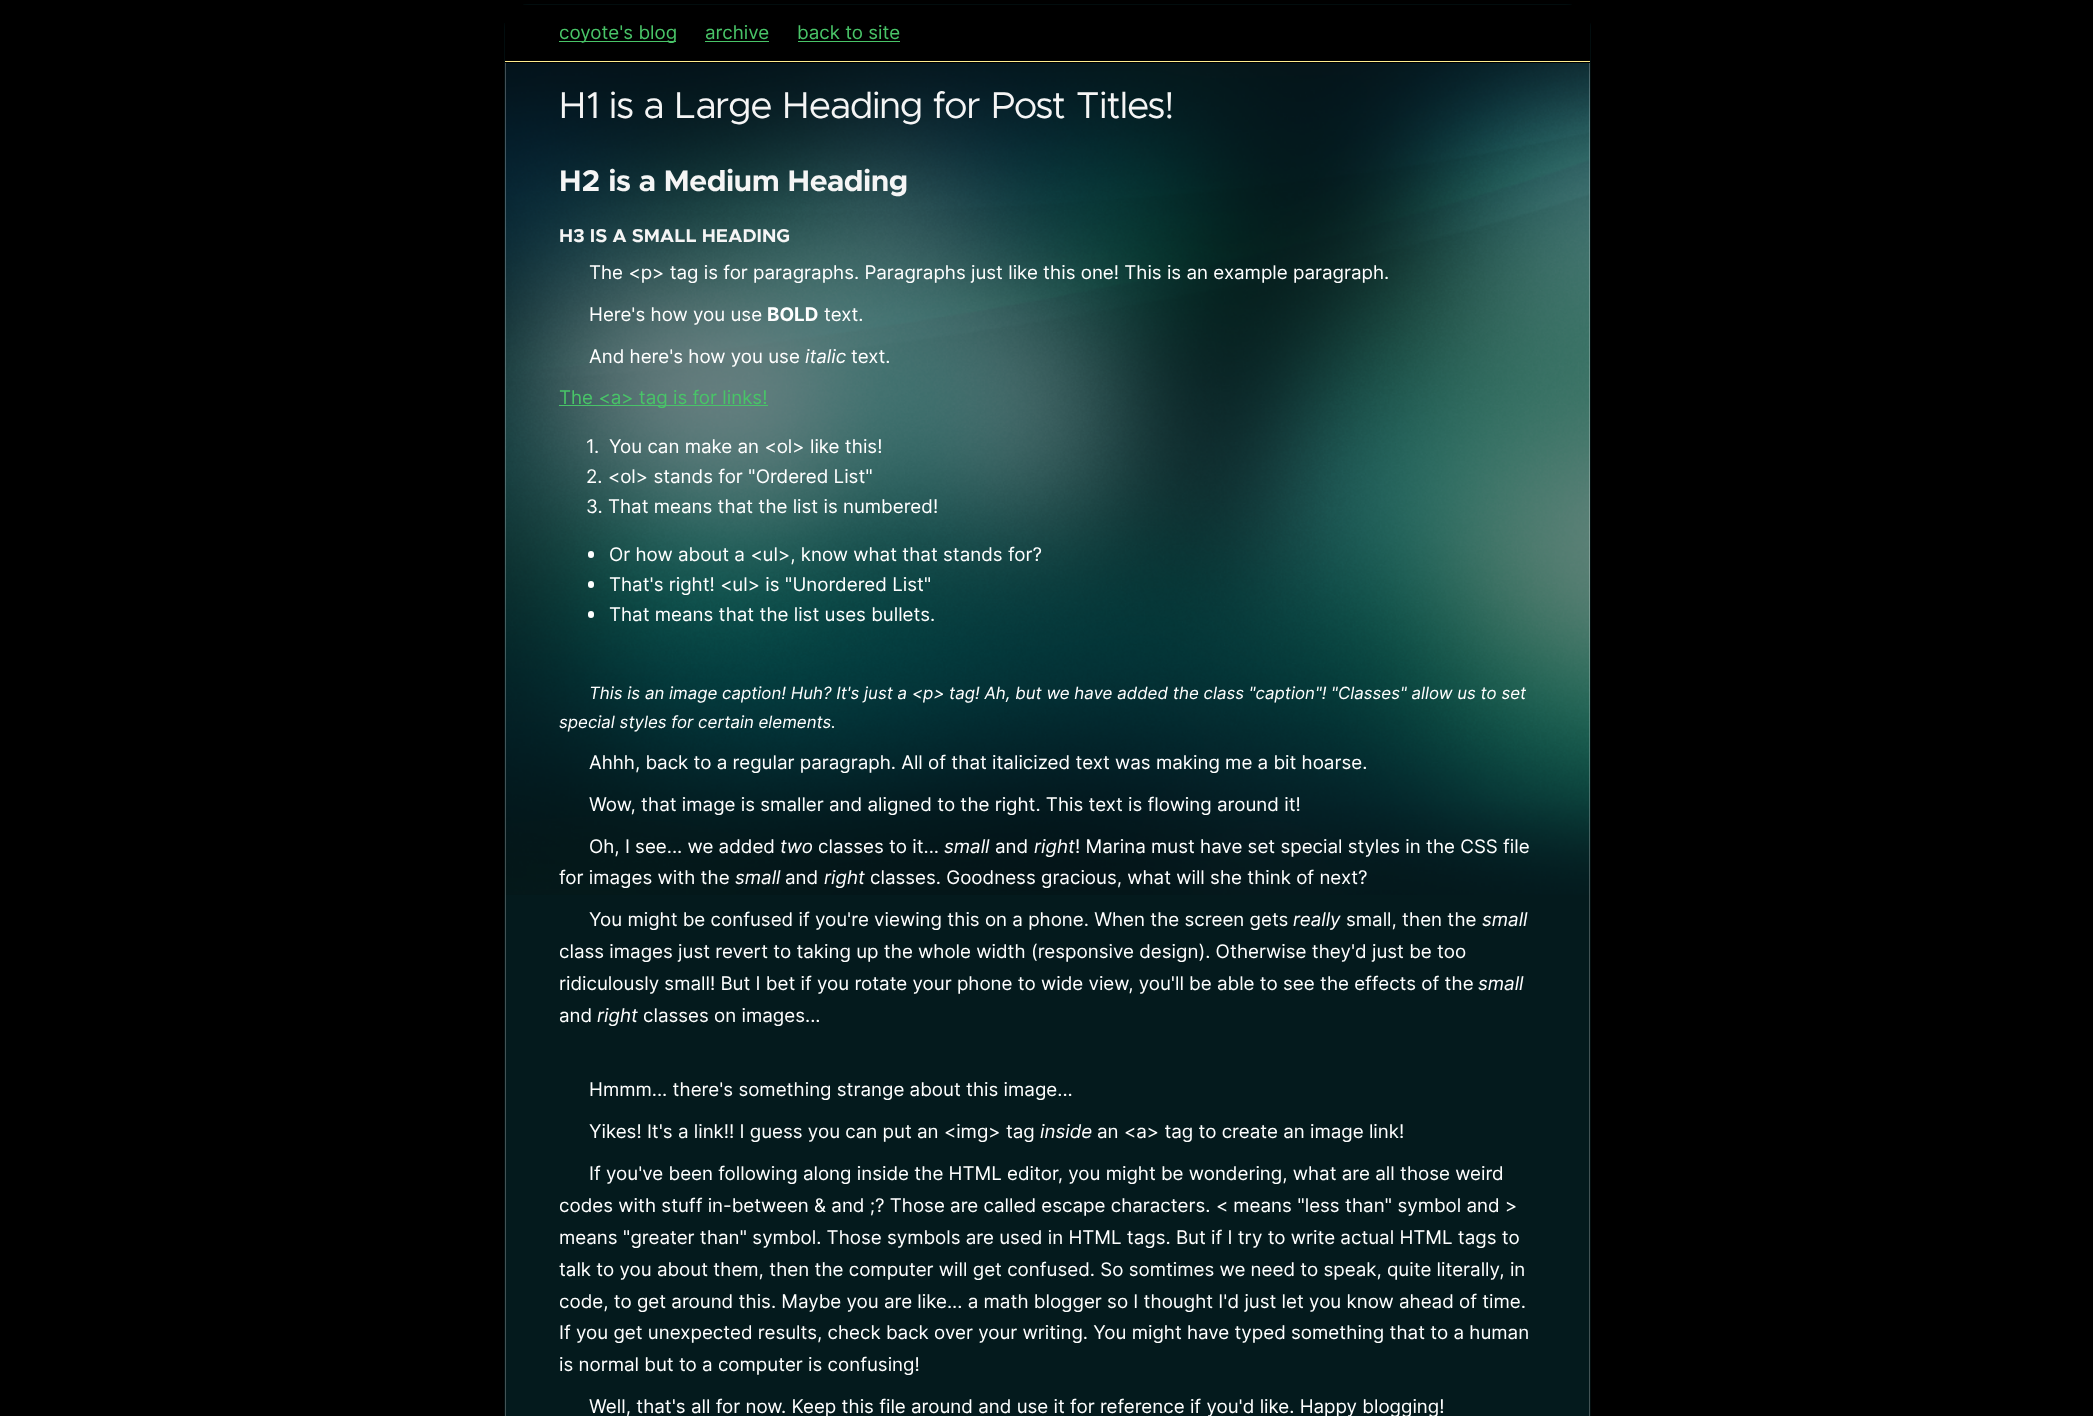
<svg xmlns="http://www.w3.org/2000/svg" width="2093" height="1416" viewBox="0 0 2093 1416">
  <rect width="100%" height="100%" fill="#000000"/>
  <rect x="504" y="4" width="1087" height="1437" rx="25" fill="#041a1d"/>
  <image x="505" y="63" width="1085" height="832" href="img1.png"/>
  <path d="M529 5C516 5 505 16 505 29V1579C505 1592 516 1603 529 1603H1566C1570 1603 1574 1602 1578 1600C1575 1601 1571 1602 1568 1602H530C517 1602 506 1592 506 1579V29C506 16 517 5 530 5Z" fill="#ffffff" fill-opacity="0.25"/>
  <path d="M516 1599C520 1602 524 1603 529 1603H1566C1579 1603 1590 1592 1590 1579V29C1590 16 1579 5 1566 5H1565C1578 5 1589 16 1589 29V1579C1589 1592 1578 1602 1565 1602H528C523 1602 519 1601 516 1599Z" fill="#ffffff" fill-opacity="0.25"/>
  <rect x="504.5" y="4.5" width="1086" height="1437" rx="24.5" fill="none" stroke="#000000" stroke-opacity="0.5"/>
  <rect x="505" y="5" width="1085" height="58" fill="#000000"/>
  <rect x="505" y="61" width="1085" height="1" fill="#feed8e"/>
  <rect x="559" y="41" width="117" height="1" fill="#49c468"/>
  <text x="559" y="39" font-family="Inter" font-size="18.75" fill="#49c468">coyote's blog</text>
  <text x="705" y="39" font-family="Inter" font-size="18.75" fill="#49c468">archive</text>
  <rect x="705" y="41" width="64" height="1" fill="#49c468"/>
  <text x="797" y="39" font-family="Inter" font-size="18.75" fill="#49c468">back to site</text>
  <rect x="798" y="41" width="102" height="1" fill="#49c468"/>
  <text x="559" y="118" font-family="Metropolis" font-size="37.5" fill="#f5f5f5">H1 is a Large Heading for Post Titles!</text>
  <text x="559" y="191" font-family="Metropolis" font-size="30" font-weight="bold" fill="#f5f5f5">H2 is a Medium Heading</text>
  <text x="559" y="242" font-family="Metropolis" font-size="18.75" font-weight="bold" fill="#f5f5f5">H3 IS A SMALL HEADING</text>
  <text x="589" y="279" font-family="Inter" font-size="18.75" fill="#ffffff">The &lt;p&gt; tag is for paragraphs. Paragraphs just like this one! This is an example paragraph.</text>
  <text x="589" y="321" font-family="Inter" font-size="18.75" fill="#ffffff">Here's how you use</text>
  <text x="767" y="321" font-family="Inter" font-size="18.75" font-weight="bold" fill="#ffffff">BOLD</text>
  <text x="824" y="321" font-family="Inter" font-size="18.75" fill="#ffffff">text.</text>
  <text x="589" y="363" font-family="Inter" font-size="18.75" fill="#ffffff">And here's how you use</text>
  <text x="805" y="363" font-family="Inter" font-size="18.75" font-style="italic" fill="#ffffff">italic</text>
  <text x="851" y="363" font-family="Inter" font-size="18.75" fill="#ffffff">text.</text>
  <rect x="559" y="405" width="209" height="1" fill="#49c468"/>
  <text x="559" y="404" font-family="Inter" font-size="18.75" fill="#49c468">The &lt;a&gt; tag is for links!</text>
  <text x="586" y="453" font-family="Inter" font-size="18.75" fill="#ffffff">1.</text>
  <text x="609" y="453" font-family="Inter" font-size="18.75" fill="#ffffff">You can make an &lt;ol&gt; like this!</text>
  <text x="586" y="483" font-family="Inter" font-size="18.75" fill="#ffffff">2. &lt;ol&gt; stands for "Ordered List"</text>
  <text x="586" y="513" font-family="Inter" font-size="18.75" fill="#ffffff">3. That means that the list is numbered!</text>
  <rect x="588" y="551" width="6" height="7" rx="3" fill="#ffffff"/>
  <text x="609" y="561" font-family="Inter" font-size="18.75" fill="#ffffff">Or how about a &lt;ul&gt;, know what that stands for?</text>
  <rect x="588" y="581" width="6" height="7" rx="3" fill="#ffffff"/>
  <text x="609" y="591" font-family="Inter" font-size="18.75" fill="#ffffff">That's right! &lt;ul&gt; is "Unordered List"</text>
  <rect x="588" y="611" width="6" height="7" rx="3" fill="#ffffff"/>
  <text x="609" y="621" font-family="Inter" font-size="18.75" fill="#ffffff">That means that the list uses bullets.</text>
  <text x="589" y="699" font-family="Inter" font-size="16.88" font-style="italic" fill="#ffffff">This is an image caption! Huh? It's just a &lt;p&gt; tag! Ah, but we have added the class "caption"! "Classes" allow us to set</text>
  <text x="559" y="728" font-family="Inter" font-size="16.88" font-style="italic" fill="#ffffff">special styles for certain elements.</text>
  <text x="589" y="769" font-family="Inter" font-size="18.75" fill="#ffffff">Ahhh, back to a regular paragraph. All of that italicized text was making me a bit hoarse.</text>
  <text x="589" y="811" font-family="Inter" font-size="18.75" fill="#ffffff">Wow, that image is smaller and aligned to the right. This text is flowing around it!</text>
  <text x="589" y="853" font-family="Inter" font-size="18.75" fill="#ffffff">Oh, I see... we added</text>
  <text x="780" y="853" font-family="Inter" font-size="18.75" font-style="italic" fill="#ffffff">two</text>
  <text x="818" y="853" font-family="Inter" font-size="18.75" fill="#ffffff">classes to it...</text>
  <text x="944" y="853" font-family="Inter" font-size="18.75" font-style="italic" fill="#ffffff">small</text>
  <text x="995" y="853" font-family="Inter" font-size="18.75" fill="#ffffff">and</text>
  <text x="1034" y="853" font-family="Inter" font-size="18.75" font-style="italic" fill="#ffffff">right</text>
  <text x="1075" y="853" font-family="Inter" font-size="18.75" fill="#ffffff">! Marina must have set special styles in the CSS file</text>
  <text x="559" y="884" font-family="Inter" font-size="18.75" fill="#ffffff">for images with the</text>
  <text x="735" y="884" font-family="Inter" font-size="18.75" font-style="italic" fill="#ffffff">small</text>
  <text x="785" y="884" font-family="Inter" font-size="18.75" fill="#ffffff">and</text>
  <text x="824" y="884" font-family="Inter" font-size="18.75" font-style="italic" fill="#ffffff">right</text>
  <text x="870" y="884" font-family="Inter" font-size="18.75" fill="#ffffff">classes. Goodness gracious, what will she think of next?</text>
  <text x="589" y="926" font-family="Inter" font-size="18.75" fill="#ffffff">You might be confused if you're viewing this on a phone. When the screen gets</text>
  <text x="1293" y="926" font-family="Inter" font-size="18.75" font-style="italic" fill="#ffffff">really</text>
  <text x="1346" y="926" font-family="Inter" font-size="18.75" fill="#ffffff">small, then the</text>
  <text x="1482" y="926" font-family="Inter" font-size="18.75" font-style="italic" fill="#ffffff">small</text>
  <text x="559" y="958" font-family="Inter" font-size="18.75" fill="#ffffff">class images just revert to taking up the whole width (responsive design). Otherwise they'd just be too</text>
  <text x="559" y="990" font-family="Inter" font-size="18.75" fill="#ffffff">ridiculously small! But I bet if you rotate your phone to wide view, you'll be able to see the effects of the</text>
  <text x="1478" y="990" font-family="Inter" font-size="18.75" font-style="italic" fill="#ffffff">small</text>
  <text x="559" y="1022" font-family="Inter" font-size="18.75" fill="#ffffff">and</text>
  <text x="597" y="1022" font-family="Inter" font-size="18.75" font-style="italic" fill="#ffffff">right</text>
  <text x="643" y="1022" font-family="Inter" font-size="18.75" fill="#ffffff">classes on images...</text>
  <text x="589" y="1096" font-family="Inter" font-size="18.75" fill="#ffffff">Hmmm... there's something strange about this image...</text>
  <text x="589" y="1138" font-family="Inter" font-size="18.75" fill="#ffffff">Yikes! It's a link!! I guess you can put an &lt;img&gt; tag</text>
  <text x="1040" y="1138" font-family="Inter" font-size="18.75" font-style="italic" fill="#ffffff">inside</text>
  <text x="1097" y="1138" font-family="Inter" font-size="18.75" fill="#ffffff">an &lt;a&gt; tag to create an image link!</text>
  <text x="589" y="1180" font-family="Inter" font-size="18.75" fill="#ffffff">If you've been following along inside the HTML editor, you might be wondering, what are all those weird</text>
  <text x="559" y="1212" font-family="Inter" font-size="18.75" fill="#ffffff">codes with stuff in-between &amp; and ;? Those are called escape characters. &lt; means "less than" symbol and &gt;</text>
  <text x="559" y="1244" font-family="Inter" font-size="18.75" fill="#ffffff">means "greater than" symbol. Those symbols are used in HTML tags. But if I try to write actual HTML tags to</text>
  <text x="559" y="1276" font-family="Inter" font-size="18.75" fill="#ffffff">talk to you about them, then the computer will get confused. So somtimes we need to speak, quite literally, in</text>
  <text x="559" y="1308" font-family="Inter" font-size="18.75" fill="#ffffff">code, to get around this. Maybe you are like... a math blogger so I thought I'd just let you know ahead of time.</text>
  <text x="559" y="1339" font-family="Inter" font-size="18.75" fill="#ffffff">If you get unexpected results, check back over your writing. You might have typed something that to a human</text>
  <text x="559" y="1371" font-family="Inter" font-size="18.75" fill="#ffffff">is normal but to a computer is confusing!</text>
  <text x="589" y="1413" font-family="Inter" font-size="18.75" fill="#ffffff">Well, that's all for now. Keep this file around and use it for reference if you'd like. Happy blogging!</text>
</svg>
